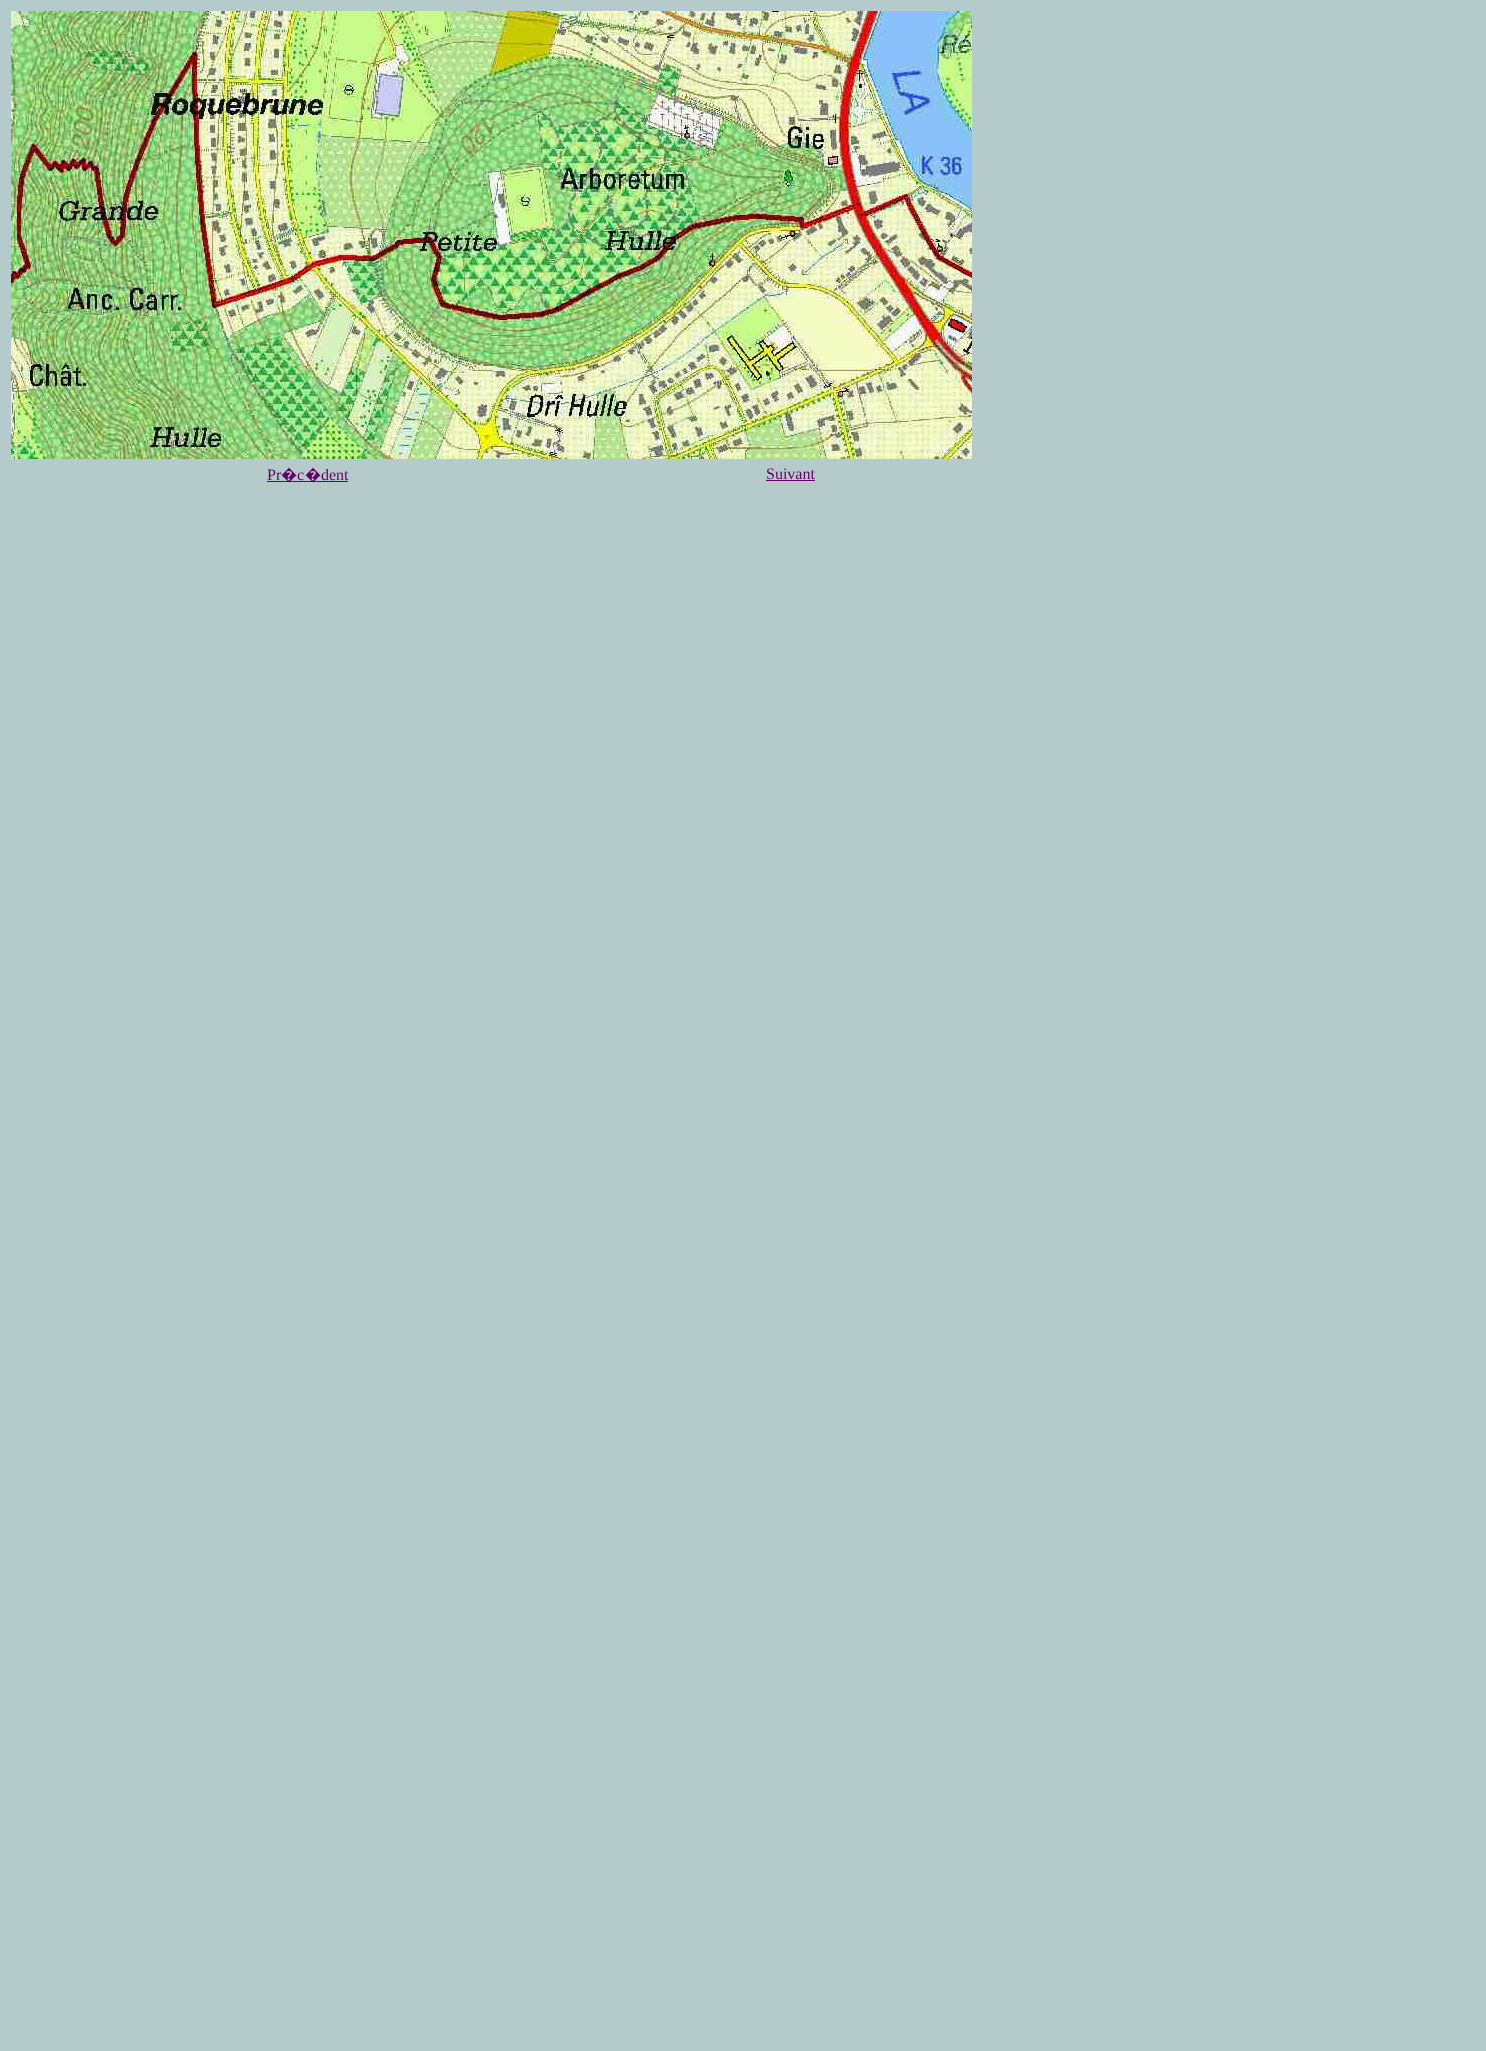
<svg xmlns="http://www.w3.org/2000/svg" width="1486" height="2051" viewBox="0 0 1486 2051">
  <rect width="100%" height="100%" fill="#b5caca"/>
  <image x="11" y="11" width="961" height="448" href="img1.png"/>
  <text x="267" y="480" font-family="Liberation Serif" font-size="16" fill="#660066">Pr</text>
  <rect x="267" y="481" width="81" height="1" fill="#660066"/>
  <text x="281" y="480" font-family="Noto Sans" font-size="16" fill="#660066">�</text>
  <text x="297" y="480" font-family="Liberation Serif" font-size="16" fill="#660066">c</text>
  <text x="305" y="480" font-family="Noto Sans" font-size="16" fill="#660066">�</text>
  <text x="321" y="480" font-family="Liberation Serif" font-size="16" fill="#660066">dent</text>
  <text x="766" y="479" font-family="Liberation Serif" font-size="16" fill="#660066">Suivant</text>
  <rect x="766" y="480" width="49" height="1" fill="#660066"/>
</svg>
